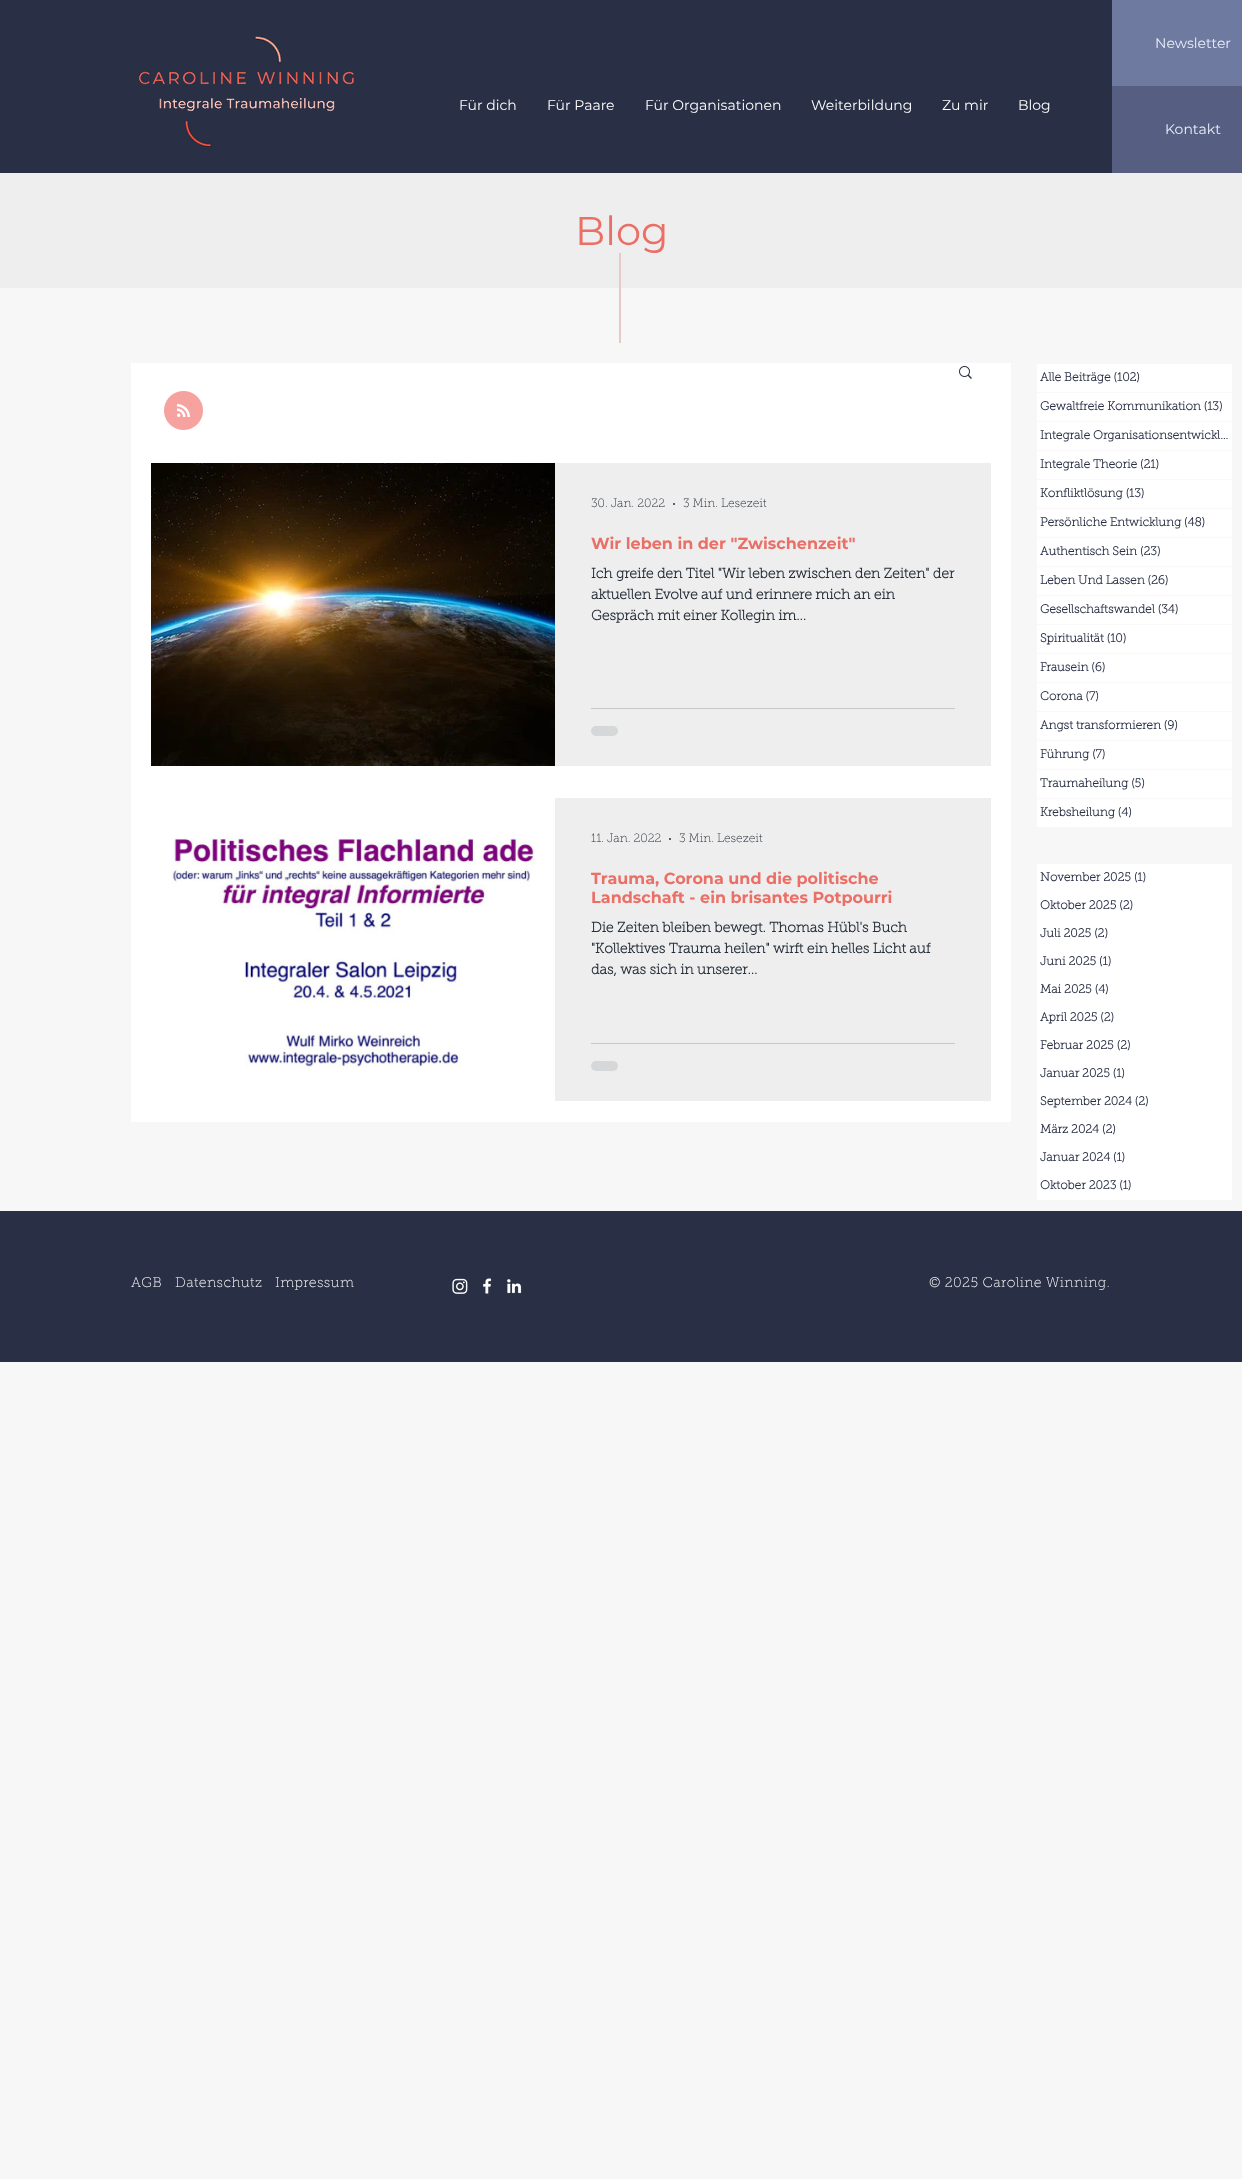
<svg xmlns="http://www.w3.org/2000/svg" width="1242" height="2179" viewBox="0 0 1242 2179">
  <rect width="100%" height="100%" fill="#f7f7f7"/>
  <rect x="0" y="0" width="1112" height="173" fill="#292f45"/>
  <image x="138" y="35" width="216" height="112" href="img1.png"/>
  <rect x="1112" y="0" width="130" height="86" fill="#6f7aa1"/>
  <text x="1155" y="48" font-family="Montserrat" font-size="14" fill="#eaeff9">Newsletter</text>
  <text x="459" y="110" font-family="Montserrat" font-size="14" fill="#ffffff">Für dich</text>
  <text x="547" y="110" font-family="Montserrat" font-size="14" fill="#ffffff">Für Paare</text>
  <text x="645" y="110" font-family="Montserrat" font-size="14" fill="#ffffff">Für Organisationen</text>
  <text x="811" y="110" font-family="Montserrat" font-size="14" fill="#ffffff">Weiterbildung</text>
  <text x="942" y="110" font-family="Montserrat" font-size="14" fill="#ffffff">Zu mir</text>
  <text x="1018" y="110" font-family="Montserrat" font-size="14" fill="#ffffff">Blog</text>
  <rect x="1112" y="86" width="130" height="87" fill="#565f82"/>
  <text x="1165" y="134" font-family="Montserrat" font-size="14" fill="#eaeff9">Kontakt</text>
  <rect x="0" y="173" width="1242" height="115" fill="#eeeeee"/>
  <text x="575" y="245" font-family="Montserrat" font-size="40" fill="#ea6f66">Blog</text>
  <rect x="619" y="253" width="2" height="90" fill="#e5cbc7"/>
  <rect x="131" y="363" width="880" height="759" fill="#ffffff"/>
  <image x="164" y="391" width="39" height="39" href="img2.png"/>
  <rect x="1037" y="364" width="195" height="463" fill="#ffffff"/>
  <text x="1040" y="381" font-family="'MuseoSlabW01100'" font-size="12" font-weight="bold" fill="#292f45">Alle Beiträge (102)</text>
  <rect x="1037" y="392" width="195" height="1" fill="#f9f9f9"/>
  <text x="1040" y="410" font-family="'MuseoSlabW01100'" font-size="12" font-weight="bold" fill="#292f45">Gewaltfreie Kommunikation (13)</text>
  <rect x="1037" y="421" width="195" height="1" fill="#f9f9f9"/>
  <text x="1040" y="439" font-family="'MuseoSlabW01100'" font-size="12" font-weight="bold" fill="#292f45">Integrale Organisationsentwickl…</text>
  <rect x="1037" y="450" width="195" height="1" fill="#f9f9f9"/>
  <text x="1040" y="468" font-family="'MuseoSlabW01100'" font-size="12" font-weight="bold" fill="#292f45">Integrale Theorie (21)</text>
  <rect x="1037" y="479" width="195" height="1" fill="#f9f9f9"/>
  <text x="1040" y="497" font-family="'MuseoSlabW01100'" font-size="12" font-weight="bold" fill="#292f45">Konfliktlösung (13)</text>
  <rect x="1037" y="508" width="195" height="1" fill="#f9f9f9"/>
  <text x="1040" y="526" font-family="'MuseoSlabW01100'" font-size="12" font-weight="bold" fill="#292f45">Persönliche Entwicklung (48)</text>
  <rect x="1037" y="537" width="195" height="1" fill="#f9f9f9"/>
  <text x="1040" y="555" font-family="'MuseoSlabW01100'" font-size="12" font-weight="bold" fill="#292f45">Authentisch Sein (23)</text>
  <rect x="1037" y="566" width="195" height="1" fill="#f9f9f9"/>
  <text x="1040" y="584" font-family="'MuseoSlabW01100'" font-size="12" font-weight="bold" fill="#292f45">Leben Und Lassen (26)</text>
  <rect x="1037" y="595" width="195" height="1" fill="#f9f9f9"/>
  <text x="1040" y="613" font-family="'MuseoSlabW01100'" font-size="12" font-weight="bold" fill="#292f45">Gesellschaftswandel (34)</text>
  <rect x="1037" y="624" width="195" height="1" fill="#f9f9f9"/>
  <text x="1040" y="642" font-family="'MuseoSlabW01100'" font-size="12" font-weight="bold" fill="#292f45">Spiritualität (10)</text>
  <rect x="1037" y="653" width="195" height="1" fill="#f9f9f9"/>
  <text x="1040" y="671" font-family="'MuseoSlabW01100'" font-size="12" font-weight="bold" fill="#292f45">Frausein (6)</text>
  <rect x="1037" y="682" width="195" height="1" fill="#f9f9f9"/>
  <text x="1040" y="700" font-family="'MuseoSlabW01100'" font-size="12" font-weight="bold" fill="#292f45">Corona (7)</text>
  <rect x="1037" y="711" width="195" height="1" fill="#f9f9f9"/>
  <text x="1040" y="729" font-family="'MuseoSlabW01100'" font-size="12" font-weight="bold" fill="#292f45">Angst transformieren (9)</text>
  <rect x="1037" y="740" width="195" height="1" fill="#f9f9f9"/>
  <text x="1040" y="758" font-family="'MuseoSlabW01100'" font-size="12" font-weight="bold" fill="#292f45">Führung (7)</text>
  <rect x="1037" y="769" width="195" height="1" fill="#f9f9f9"/>
  <text x="1040" y="787" font-family="'MuseoSlabW01100'" font-size="12" font-weight="bold" fill="#292f45">Traumaheilung (5)</text>
  <rect x="1037" y="798" width="195" height="1" fill="#f9f9f9"/>
  <text x="1040" y="816" font-family="'MuseoSlabW01100'" font-size="12" font-weight="bold" fill="#292f45">Krebsheilung (4)</text>
  <image x="959" y="366" width="13" height="13" href="img3.png"/>
  <image x="151" y="463" width="404" height="303" href="img4.png"/>
  <rect x="555" y="463" width="436" height="303" fill="#eeeeee"/>
  <text x="591" y="507" font-family="'MuseoSlabW01100'" font-size="12" font-weight="100" fill="#252e39">30. Jan. 2022</text>
  <circle cx="674" cy="504" r="1" fill="#252e39"/>
  <text x="683" y="507" font-family="'MuseoSlabW01100'" font-size="12" font-weight="100" fill="#252e39">3 Min. Lesezeit</text>
  <text x="591" y="549" font-family="Montserrat" font-size="16" font-weight="bold" fill="#ea6f66">Wir leben in der "Zwischenzeit"</text>
  <text x="591" y="578" font-family="'MuseoSlabW01100'" font-size="14" font-weight="bold" fill="#252e39">Ich greife den Titel "Wir leben zwischen den Zeiten" der</text>
  <text x="591" y="599" font-family="'MuseoSlabW01100'" font-size="14" font-weight="bold" fill="#252e39">aktuellen Evolve auf und erinnere mich an ein</text>
  <text x="591" y="620" font-family="'MuseoSlabW01100'" font-size="14" font-weight="bold" fill="#252e39">Gespräch mit einer Kollegin im...</text>
  <rect x="591" y="708" width="364" height="1" fill="#c6c8ca"/>
  <rect x="591" y="726" width="27" height="10" rx="5" fill="#d6d7d8"/>
  <image x="171" y="838" width="364" height="230" href="img5.png"/>
  <rect x="555" y="798" width="436" height="303" fill="#eeeeee"/>
  <text x="591" y="842" font-family="'MuseoSlabW01100'" font-size="12" font-weight="100" fill="#252e39">11. Jan. 2022</text>
  <circle cx="670" cy="839" r="1" fill="#252e39"/>
  <text x="679" y="842" font-family="'MuseoSlabW01100'" font-size="12" font-weight="100" fill="#252e39">3 Min. Lesezeit</text>
  <text x="591" y="884" font-family="Montserrat" font-size="16" font-weight="bold" fill="#ea6f66">Trauma, Corona und die politische</text>
  <text x="591" y="903" font-family="Montserrat" font-size="16" font-weight="bold" fill="#ea6f66">Landschaft - ein brisantes Potpourri</text>
  <text x="591" y="932" font-family="'MuseoSlabW01100'" font-size="14" font-weight="bold" fill="#252e39">Die Zeiten bleiben bewegt. Thomas Hübl's Buch</text>
  <text x="591" y="953" font-family="'MuseoSlabW01100'" font-size="14" font-weight="bold" fill="#252e39">"Kollektives Trauma heilen" wirft ein helles Licht auf</text>
  <text x="591" y="974" font-family="'MuseoSlabW01100'" font-size="14" font-weight="bold" fill="#252e39">das, was sich in unserer...</text>
  <rect x="591" y="1043" width="364" height="1" fill="#c6c8ca"/>
  <rect x="591" y="1061" width="27" height="10" rx="5" fill="#d6d7d8"/>
  <rect x="1037" y="864" width="195" height="336" fill="#ffffff"/>
  <text x="1040" y="881" font-family="'MuseoSlabW01100'" font-size="12" font-weight="bold" fill="#292f45">November 2025 (1)</text>
  <text x="1040" y="909" font-family="'MuseoSlabW01100'" font-size="12" font-weight="bold" fill="#292f45">Oktober 2025 (2)</text>
  <text x="1040" y="937" font-family="'MuseoSlabW01100'" font-size="12" font-weight="bold" fill="#292f45">Juli 2025 (2)</text>
  <text x="1040" y="965" font-family="'MuseoSlabW01100'" font-size="12" font-weight="bold" fill="#292f45">Juni 2025 (1)</text>
  <text x="1040" y="993" font-family="'MuseoSlabW01100'" font-size="12" font-weight="bold" fill="#292f45">Mai 2025 (4)</text>
  <text x="1040" y="1021" font-family="'MuseoSlabW01100'" font-size="12" font-weight="bold" fill="#292f45">April 2025 (2)</text>
  <text x="1040" y="1049" font-family="'MuseoSlabW01100'" font-size="12" font-weight="bold" fill="#292f45">Februar 2025 (2)</text>
  <text x="1040" y="1077" font-family="'MuseoSlabW01100'" font-size="12" font-weight="bold" fill="#292f45">Januar 2025 (1)</text>
  <text x="1040" y="1105" font-family="'MuseoSlabW01100'" font-size="12" font-weight="bold" fill="#292f45">September 2024 (2)</text>
  <text x="1040" y="1133" font-family="'MuseoSlabW01100'" font-size="12" font-weight="bold" fill="#292f45">März 2024 (2)</text>
  <text x="1040" y="1161" font-family="'MuseoSlabW01100'" font-size="12" font-weight="bold" fill="#292f45">Januar 2024 (1)</text>
  <text x="1040" y="1189" font-family="'MuseoSlabW01100'" font-size="12" font-weight="bold" fill="#292f45">Oktober 2023 (1)</text>
  <rect x="0" y="1211" width="1242" height="151" fill="#292f45"/>
  <text x="131" y="1287" font-family="'MuseoSlabW01100'" font-size="14" font-weight="100" letter-spacing="0.4" fill="#ffffff">AGB</text>
  <text x="175" y="1287" font-family="'MuseoSlabW01100'" font-size="14" font-weight="100" letter-spacing="0.4" fill="#ffffff">Datenschutz</text>
  <text x="275" y="1287" font-family="'MuseoSlabW01100'" font-size="14" font-weight="100" letter-spacing="0.4" fill="#ffffff">Impressum</text>
  <image x="452" y="1278" width="16" height="16" href="img6.png"/>
  <image x="483" y="1278" width="9" height="16" href="img7.png"/>
  <image x="507" y="1279" width="15" height="15" href="img8.png"/>
  <text x="929" y="1287" font-family="'MuseoSlabW01100'" font-size="14" font-weight="100" letter-spacing="0.4" fill="#ffffff">© 2025 Caroline Winning.</text>
</svg>
